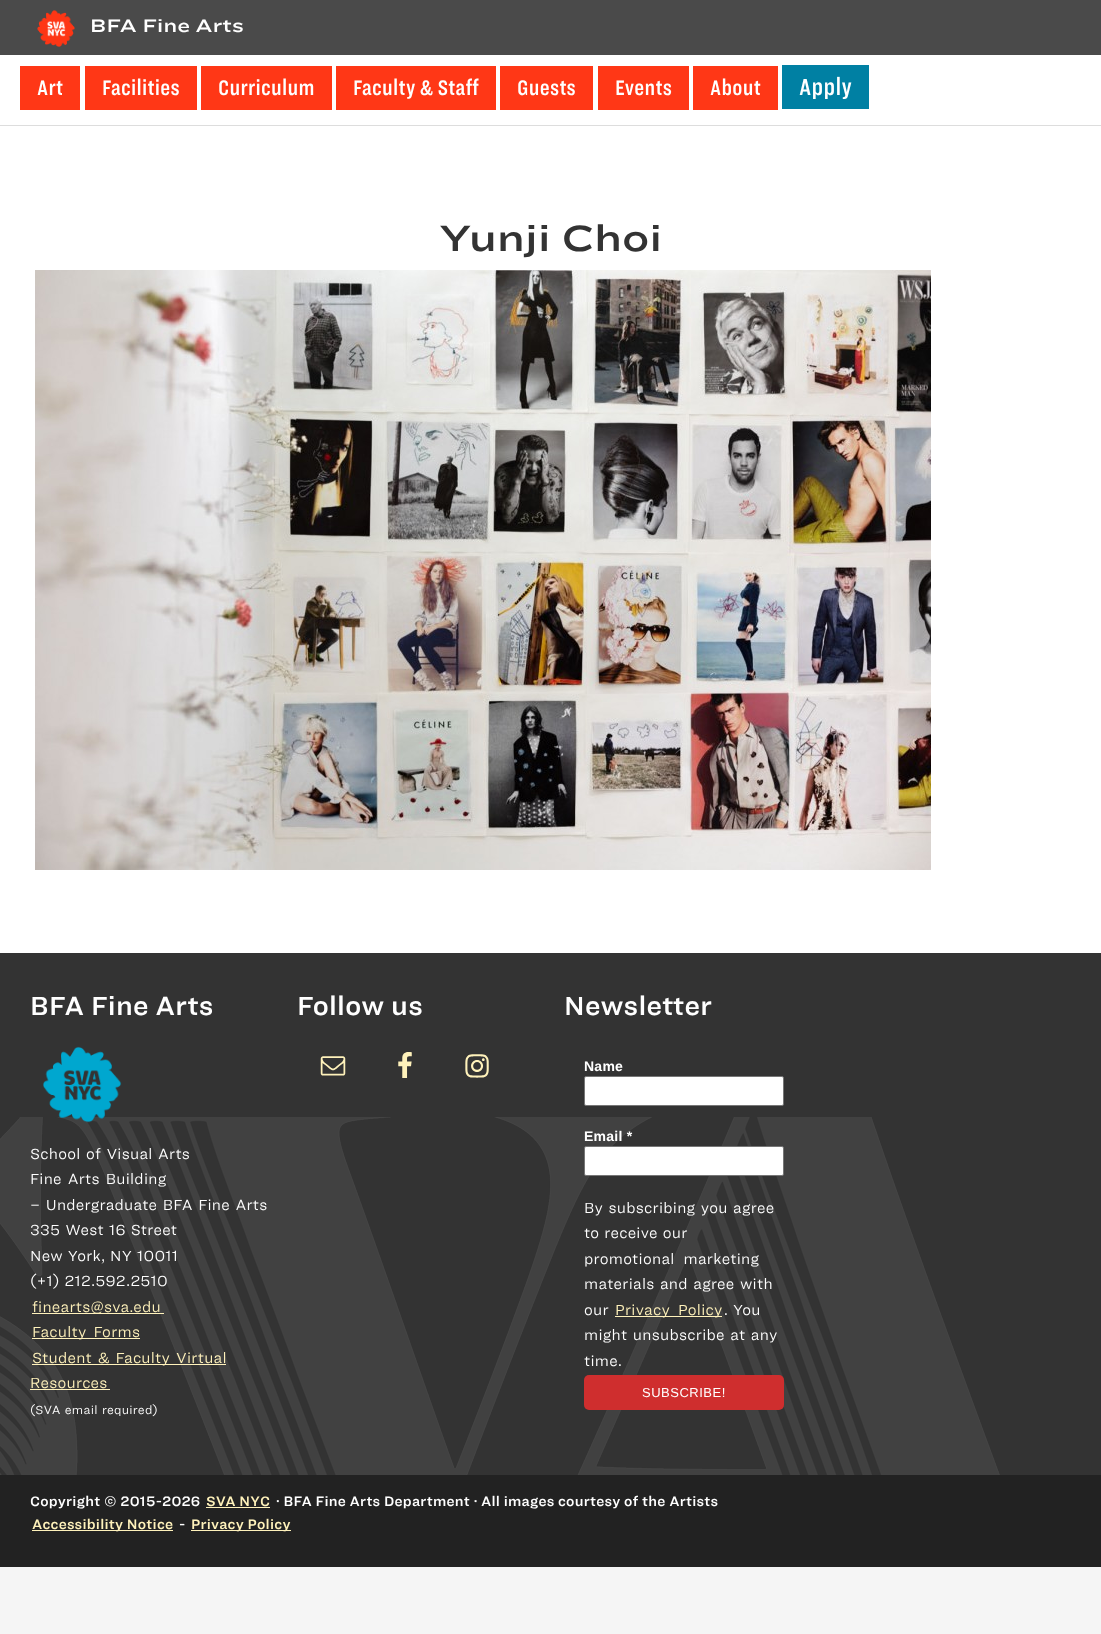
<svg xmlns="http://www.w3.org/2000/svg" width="1101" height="1634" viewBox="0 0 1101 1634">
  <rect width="100%" height="100%" fill="#f5f5f5"/>
  <rect x="0" y="126" width="1101" height="827" fill="#ffffff"/>
  <rect x="0" y="0" width="1101" height="55" fill="#4a4a4a"/>
  <image x="37" y="10" width="38" height="37" href="img1.png"/>
  <text x="90" y="32" font-family="'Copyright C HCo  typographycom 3'" font-size="17.25" font-weight="300" letter-spacing="0.25" fill="#ffffff">BFA Fine Arts</text>
  <rect x="0" y="55" width="1101" height="70" fill="#ffffff"/>
  <rect x="0" y="125" width="1101" height="1" fill="#dddddd"/>
  <rect x="20" y="66" width="60" height="44" fill="#ff3716"/>
  <text x="37" y="95" font-family="'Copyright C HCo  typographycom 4'" font-size="20" font-weight="300" letter-spacing="0.25" fill="#ffffff">Art</text>
  <rect x="85" y="66" width="112" height="44" fill="#ff3716"/>
  <text x="102" y="95" font-family="'Copyright C HCo  typographycom 4'" font-size="20" font-weight="300" letter-spacing="0.25" fill="#ffffff">Facilities</text>
  <rect x="201" y="66" width="131" height="44" fill="#ff3716"/>
  <text x="218" y="95" font-family="'Copyright C HCo  typographycom 4'" font-size="20" font-weight="300" letter-spacing="0.25" fill="#ffffff">Curriculum</text>
  <rect x="336" y="66" width="160" height="44" fill="#ff3716"/>
  <text x="353" y="95" font-family="'Copyright C HCo  typographycom 4'" font-size="20" font-weight="300" letter-spacing="0.25" fill="#ffffff">Faculty &amp; Staff</text>
  <rect x="500" y="66" width="93" height="44" fill="#ff3716"/>
  <text x="517" y="95" font-family="'Copyright C HCo  typographycom 4'" font-size="20" font-weight="300" letter-spacing="0.25" fill="#ffffff">Guests</text>
  <rect x="598" y="66" width="91" height="44" fill="#ff3716"/>
  <text x="615" y="95" font-family="'Copyright C HCo  typographycom 4'" font-size="20" font-weight="300" letter-spacing="0.25" fill="#ffffff">Events</text>
  <rect x="693" y="66" width="85" height="44" fill="#ff3716"/>
  <text x="710" y="95" font-family="'Copyright C HCo  typographycom 4'" font-size="20" font-weight="300" letter-spacing="0.25" fill="#ffffff">About</text>
  <rect x="782" y="65" width="87" height="44" fill="#0080a3"/>
  <text x="799" y="95" font-family="'Copyright C HCo  typographycom 4'" font-size="22" font-weight="300" letter-spacing="0.25" fill="#ffffff">Apply</text>
  <text x="439" y="251" font-family="'Copyright C HCo  typographycom 3'" font-size="35" font-weight="300" letter-spacing="0.25" fill="#333333">Yunji Choi</text>
  <image x="35" y="270" width="896" height="600" href="img2.png"/>
  <rect x="0" y="953" width="1101" height="522" fill="#333333"/>
  <image x="0" y="1117" width="1000" height="358" href="img3.png"/>
  <text x="30" y="1015" font-family="'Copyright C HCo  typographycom'" font-size="25" font-weight="300" letter-spacing="0.25" fill="#ffffff">BFA Fine Arts</text>
  <image x="43" y="1046" width="79" height="77" href="img4.png"/>
  <text x="30" y="1159" word-spacing="1.5" font-family="'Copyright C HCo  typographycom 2'" font-size="14" font-weight="300" letter-spacing="0.25" fill="#ffffff">School of Visual Arts</text>
  <text x="30" y="1184" word-spacing="2" font-family="'Copyright C HCo  typographycom 2'" font-size="14" font-weight="300" letter-spacing="0.25" fill="#ffffff">Fine Arts Building</text>
  <text x="30" y="1210" word-spacing="1.5" font-family="'Copyright C HCo  typographycom 2'" font-size="14" font-weight="300" letter-spacing="0.25" fill="#ffffff">– Undergraduate BFA Fine Arts</text>
  <text x="30" y="1235" word-spacing="1" font-family="'Copyright C HCo  typographycom 2'" font-size="14" font-weight="300" letter-spacing="0.25" fill="#ffffff">335 West 16 Street</text>
  <text x="30" y="1261" word-spacing="1" font-family="'Copyright C HCo  typographycom 2'" font-size="14" font-weight="300" letter-spacing="0.25" fill="#ffffff">New York, NY 10011</text>
  <text x="30" y="1286" word-spacing="1" font-family="'Copyright C HCo  typographycom 2'" font-size="14" font-weight="300" letter-spacing="0.25" fill="#ffffff">(+1) 212.592.2510</text>
  <rect x="32" y="1313" width="132" height="1" fill="#fff2bb"/>
  <text x="32" y="1312" font-family="'Copyright C HCo  typographycom 2'" font-size="14" font-weight="300" letter-spacing="0.25" fill="#fff2bb">finearts@sva.edu</text>
  <rect x="32" y="1338" width="108" height="1" fill="#fff2bb"/>
  <text x="32" y="1337" word-spacing="3" font-family="'Copyright C HCo  typographycom 2'" font-size="14" font-weight="300" letter-spacing="0.25" fill="#fff2bb">Faculty Forms</text>
  <rect x="32" y="1364" width="194" height="1" fill="#fff2bb"/>
  <text x="32" y="1363" word-spacing="2" font-family="'Copyright C HCo  typographycom 2'" font-size="14" font-weight="300" letter-spacing="0.25" fill="#fff2bb">Student &amp; Faculty Virtual</text>
  <text x="30" y="1388" font-family="'Copyright C HCo  typographycom 2'" font-size="14" font-weight="300" letter-spacing="0.25" fill="#fff2bb">Resources</text>
  <rect x="30" y="1389" width="80" height="1" fill="#fff2bb"/>
  <text x="30" y="1414" word-spacing="1" font-family="'Copyright C HCo  typographycom 2'" font-size="11.25" font-weight="300" letter-spacing="0.25" fill="#ffffff">(SVA email required)</text>
  <text x="297" y="1015" font-family="'Copyright C HCo  typographycom'" font-size="25" font-weight="300" letter-spacing="0.25" fill="#ffffff">Follow us</text>
  <image x="320" y="1056" width="26" height="20" href="img5.png"/>
  <image x="398" y="1052" width="14" height="26" href="img6.png"/>
  <image x="465" y="1054" width="24" height="24" href="img7.png"/>
  <text x="564" y="1015" font-family="'Copyright C HCo  typographycom'" font-size="25" font-weight="300" letter-spacing="0.25" fill="#ffffff">Newsletter</text>
  <text x="584" y="1071" font-family="Liberation Sans" font-size="14" font-weight="bold" letter-spacing="0.25" fill="#ffffff">Name</text>
  <rect x="584.5" y="1076.5" width="199" height="29" rx="1.5" fill="#ffffff" stroke="#767676"/>
  <text x="584" y="1141" font-family="Liberation Sans" font-size="14" font-weight="bold" letter-spacing="0.25" fill="#ffffff">Email *</text>
  <rect x="584.5" y="1146.5" width="199" height="29" rx="1.5" fill="#ffffff" stroke="#767676"/>
  <text x="584" y="1213" word-spacing="1.5" font-family="'Copyright C HCo  typographycom 2'" font-size="14" font-weight="300" letter-spacing="0.25" fill="#ffffff">By subscribing you agree</text>
  <text x="584" y="1238" word-spacing="1" font-family="'Copyright C HCo  typographycom 2'" font-size="14" font-weight="300" letter-spacing="0.25" fill="#ffffff">to receive our</text>
  <text x="584" y="1264" word-spacing="5" font-family="'Copyright C HCo  typographycom 2'" font-size="14" font-weight="300" letter-spacing="0.25" fill="#ffffff">promotional marketing</text>
  <text x="584" y="1289" word-spacing="1.5" font-family="'Copyright C HCo  typographycom 2'" font-size="14" font-weight="300" letter-spacing="0.25" fill="#ffffff">materials and agree with</text>
  <text x="584" y="1315" font-family="'Copyright C HCo  typographycom 2'" font-size="14" font-weight="300" letter-spacing="0.25" fill="#ffffff">our</text>
  <rect x="615" y="1316" width="107" height="1" fill="#fff2bb"/>
  <text x="615" y="1315" word-spacing="4" font-family="'Copyright C HCo  typographycom 2'" font-size="14" font-weight="300" letter-spacing="0.25" fill="#fff2bb">Privacy Policy</text>
  <text x="724" y="1315" word-spacing="1" font-family="'Copyright C HCo  typographycom 2'" font-size="14" font-weight="300" letter-spacing="0.25" fill="#ffffff">. You</text>
  <text x="584" y="1340" word-spacing="1.5" font-family="'Copyright C HCo  typographycom 2'" font-size="14" font-weight="300" letter-spacing="0.25" fill="#ffffff">might unsubscribe at any</text>
  <text x="584" y="1366" font-family="'Copyright C HCo  typographycom 2'" font-size="14" font-weight="300" letter-spacing="0.25" fill="#ffffff">time.</text>
  <rect x="584" y="1375" width="200" height="35" rx="5" fill="#cf2e2e"/>
  <text x="642" y="1397" font-family="Liberation Sans" font-size="13" letter-spacing="0.5" fill="#ffffff">SUBSCRIBE!</text>
  <rect x="0" y="1475" width="1101" height="92" fill="#222222"/>
  <text x="30" y="1506" font-family="'Copyright C HCo  typographycom'" font-size="13" font-weight="300" letter-spacing="0.25" fill="#ffffff">Copyright © 2015-2026</text>
  <text x="206" y="1506" font-family="'Copyright C HCo  typographycom'" font-size="13" font-weight="300" letter-spacing="0.25" fill="#fff2bb">SVA NYC</text>
  <rect x="206" y="1507" width="64" height="1" fill="#fff2bb"/>
  <text x="276" y="1506" font-family="'Copyright C HCo  typographycom'" font-size="13" font-weight="300" letter-spacing="0.25" fill="#ffffff">· BFA Fine Arts Department · All images courtesy of the Artists</text>
  <rect x="32" y="1530" width="141" height="1" fill="#fff2bb"/>
  <text x="32" y="1529" font-family="'Copyright C HCo  typographycom'" font-size="13" font-weight="300" letter-spacing="0.25" fill="#fff2bb">Accessibility Notice</text>
  <text x="179" y="1529" font-family="'Copyright C HCo  typographycom'" font-size="13" font-weight="300" letter-spacing="0.25" fill="#ffffff">-</text>
  <rect x="191" y="1530" width="100" height="1" fill="#fff2bb"/>
  <text x="191" y="1529" font-family="'Copyright C HCo  typographycom'" font-size="13" font-weight="300" letter-spacing="0.25" fill="#fff2bb">Privacy Policy</text>
</svg>
